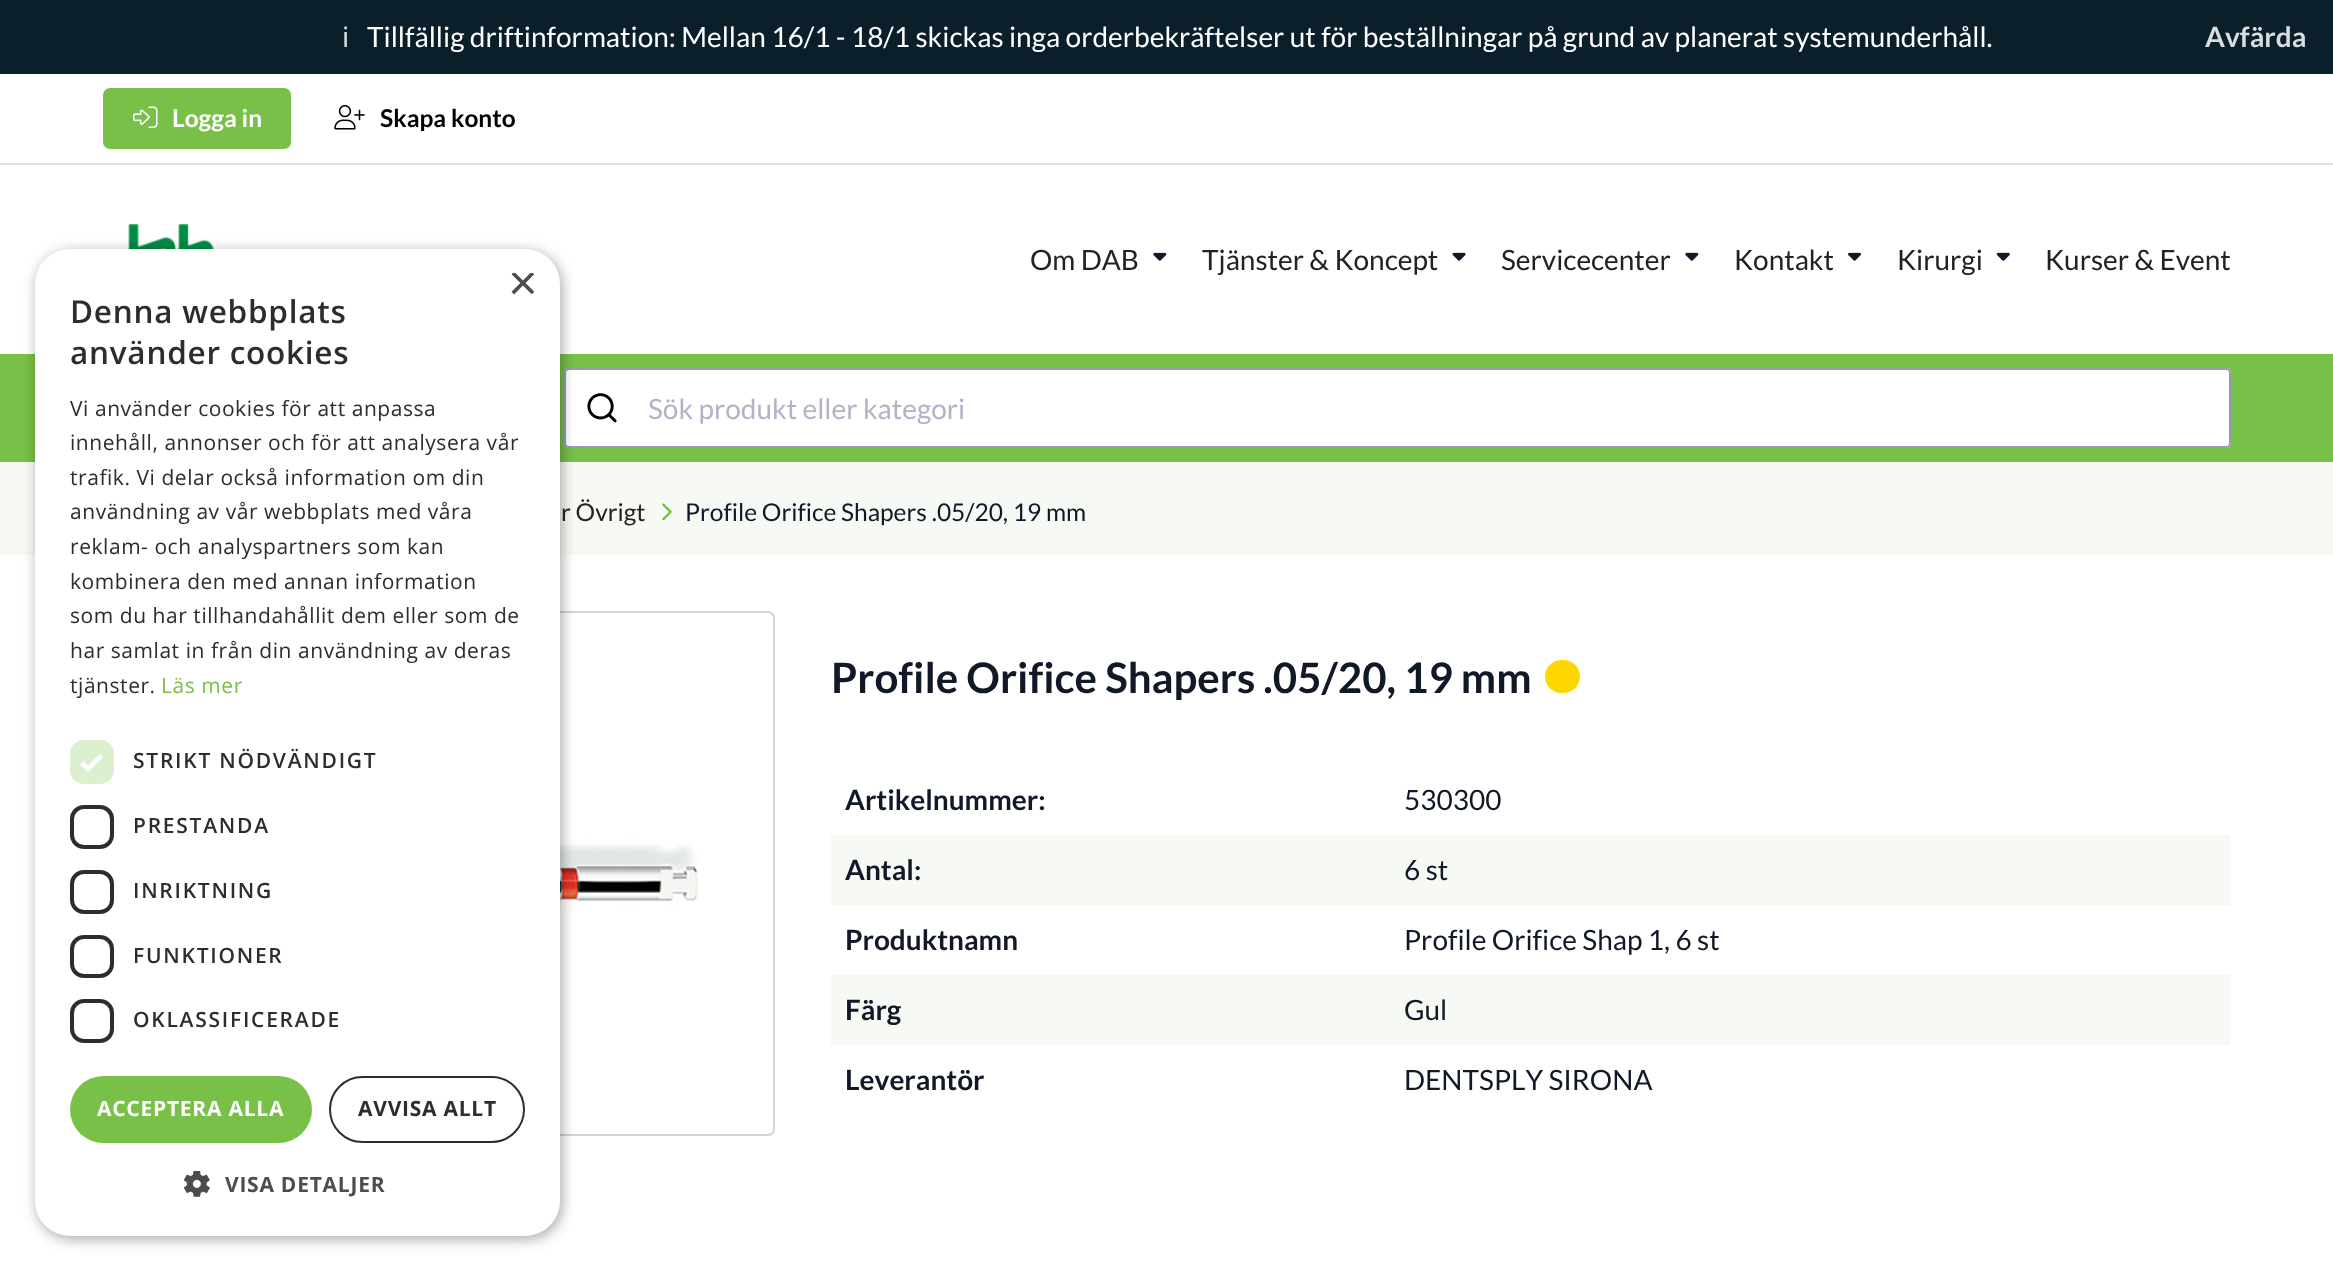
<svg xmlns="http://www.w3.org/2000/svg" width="2333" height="1269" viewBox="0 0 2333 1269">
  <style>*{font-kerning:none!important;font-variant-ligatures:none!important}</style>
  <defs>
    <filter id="blur1" x="-50%" y="-200%" width="200%" height="500%"><feGaussianBlur stdDeviation="7"/></filter>
    <clipPath id="clip1"><rect x="508" y="273" width="26" height="26"/></clipPath>
  </defs>
  <rect width="100%" height="100%" fill="#ffffff"/>
  <rect x="0" y="0" width="2333" height="74" fill="#0b1f2a"/>
  <text x="342" y="47" font-family="Noto Sans" font-size="28" fill="#dadddf">ℹ︎</text>
  <text x="367" y="47" font-family="Lato" font-size="28" fill="#ffffff">Tillfällig driftinformation: Mellan 16/1 - 18/1 skickas inga orderbekräftelser ut för beställningar på grund av planerat systemunderhåll.</text>
  <text x="2205" y="47" font-family="Lato" font-size="28" font-weight="bold" fill="#dadddf">Avfärda</text>
  <rect x="0" y="163" width="2333" height="2" fill="#e1e4de"/>
  <rect x="103" y="88" width="188" height="61" rx="7" fill="#78c047"/>
  <image x="133" y="106" width="25" height="22" href="img1.png"/>
  <text x="172" y="127" font-family="Lato" font-size="24.5" font-weight="bold" fill="#ffffff">Logga in</text>
  <image x="334" y="105" width="31" height="25" href="img2.png"/>
  <text x="380" y="127" font-family="Lato" font-size="24.5" font-weight="bold" fill="#000000">Skapa konto</text>
  <image x="128" y="224" width="86" height="25" href="img3.png"/>
  <text x="1030" y="270" font-family="Lato" font-size="28" fill="#222222">Om DAB</text>
  <image x="1153" y="252" width="14" height="9" href="img4.png"/>
  <text x="1202" y="270" font-family="Lato" font-size="28" fill="#222222">Tjänster &amp; Koncept</text>
  <image x="1452" y="252" width="14" height="9" href="img5.png"/>
  <text x="1501" y="270" font-family="Lato" font-size="28" fill="#222222">Servicecenter</text>
  <image x="1685" y="252" width="14" height="9" href="img4.png"/>
  <text x="1734" y="270" font-family="Lato" font-size="28" fill="#222222">Kontakt</text>
  <image x="1848" y="252" width="14" height="9" href="img6.png"/>
  <text x="1897" y="270" font-family="Lato" font-size="28" fill="#222222">Kirurgi</text>
  <image x="1996" y="252" width="14" height="9" href="img7.png"/>
  <text x="2045" y="270" font-family="Lato" font-size="28" fill="#222222">Kurser &amp; Event</text>
  <rect x="0" y="354" width="2333" height="108" fill="#78c047"/>
  <rect x="564" y="368" width="1667" height="80" rx="5" fill="#ffffff"/>
  <rect x="565" y="369" width="1665" height="78" rx="4" fill="none" stroke="#807ea3" stroke-opacity="0.8" stroke-width="2"/>
  <image x="587" y="393" width="30" height="30" href="img8.png"/>
  <text x="648" y="419" font-family="Lato" font-size="28" fill="#b3b2c8">Sök produkt eller kategori</text>
  <rect x="0" y="462" width="2333" height="93" fill="#f7faf4"/>
  <text x="561" y="521" font-family="Lato" font-size="24.5" fill="#222222">r Övrigt</text>
  <image x="662" y="503" width="10" height="18" href="img9.png"/>
  <text x="685" y="521" font-family="Lato" font-size="24.5" fill="#111827">Profile Orifice Shapers .05/20, 19 mm</text>
  <rect x="104" y="612" width="670" height="523" rx="6" fill="none" stroke="#ced4da" stroke-width="2"/>
  <image x="560" y="834" width="140" height="79" href="img10.png"/>
  <text x="831" y="693" font-family="Lato" font-size="42" font-weight="bold" fill="#111827">Profile Orifice Shapers .05/20, 19 mm</text>
  <rect x="1545" y="660" width="35" height="33" rx="16.5" fill="#ffd700"/>
  <text x="845" y="810" font-family="Lato" font-size="28" font-weight="bold" fill="#111827">Artikelnummer:</text>
  <text x="1404" y="810" font-family="Lato" font-size="28" fill="#111827">530300</text>
  <rect x="831" y="835" width="1400" height="70" fill="#f7faf4"/>
  <text x="845" y="880" font-family="Lato" font-size="28" font-weight="bold" fill="#111827">Antal:</text>
  <text x="1404" y="880" font-family="Lato" font-size="28" fill="#111827">6 st</text>
  <text x="845" y="950" font-family="Lato" font-size="28" font-weight="bold" fill="#111827">Produktnamn</text>
  <text x="1404" y="950" font-family="Lato" font-size="28" fill="#111827">Profile Orifice Shap 1, 6 st</text>
  <rect x="831" y="975" width="1400" height="70" fill="#f7faf4"/>
  <text x="845" y="1020" font-family="Lato" font-size="28" font-weight="bold" fill="#111827">Färg</text>
  <text x="1404" y="1020" font-family="Lato" font-size="28" fill="#111827">Gul</text>
  <text x="845" y="1090" font-family="Lato" font-size="28" font-weight="bold" fill="#111827">Leverantör</text>
  <text x="1404" y="1090" font-family="Lato" font-size="28" fill="#111827">DENTSPLY SIRONA</text>
  <rect x="37" y="252" width="525" height="987" rx="35" fill="#000000" fill-opacity="0.35" filter="url(#blur1)"/>
  <rect x="35" y="249" width="525" height="987" rx="35" fill="#ffffff"/>
  <g clip-path="url(#clip1)">
    <text x="508" y="300" font-family="Liberation Sans" font-size="51" fill="#4d4d4d">×</text>
  </g>
  <text x="70" y="323" font-family="Open Sans" font-size="31.5" font-weight="600" letter-spacing="0.75" fill="#2d2d2d">Denna webbplats</text>
  <text x="70" y="364" font-family="Open Sans" font-size="31.5" font-weight="600" letter-spacing="0.75" fill="#2d2d2d">använder cookies</text>
  <text x="70" y="416" font-family="Open Sans" font-size="21" letter-spacing="0.55" fill="#2d2d2d">Vi använder cookies för att anpassa</text>
  <text x="70" y="450" font-family="Open Sans" font-size="21" letter-spacing="0.55" fill="#2d2d2d">innehåll, annonser och för att analysera vår</text>
  <text x="70" y="485" font-family="Open Sans" font-size="21" letter-spacing="0.55" fill="#2d2d2d">trafik. Vi delar också information om din</text>
  <text x="70" y="519" font-family="Open Sans" font-size="21" letter-spacing="0.55" fill="#2d2d2d">användning av vår webbplats med våra</text>
  <text x="70" y="554" font-family="Open Sans" font-size="21" letter-spacing="0.55" fill="#2d2d2d">reklam- och analyspartners som kan</text>
  <text x="70" y="589" font-family="Open Sans" font-size="21" letter-spacing="0.55" fill="#2d2d2d">kombinera den med annan information</text>
  <text x="70" y="623" font-family="Open Sans" font-size="21" letter-spacing="0.55" fill="#2d2d2d">som du har tillhandahållit dem eller som de</text>
  <text x="70" y="658" font-family="Open Sans" font-size="21" letter-spacing="0.55" fill="#2d2d2d">har samlat in från din användning av deras</text>
  <text x="70" y="693" font-family="Open Sans" font-size="21" letter-spacing="0.55" fill="#2d2d2d">tjänster.</text>
  <text x="161" y="693" font-family="Open Sans" font-size="21" letter-spacing="0.55" fill="#78c047">Läs mer</text>
  <rect x="70" y="740" width="44" height="44" rx="14" fill="#dcefcf"/>
  <path d="M82 763L88 769L101.5 755.5" fill="none" stroke="#ffffff" stroke-width="4.6"/>
  <text x="133" y="768" font-family="Open Sans" font-size="21" font-weight="600" letter-spacing="1.75" fill="#2d2d2d">STRIKT NÖDVÄNDIGT</text>
  <rect x="72" y="807" width="40" height="40" rx="12" fill="none" stroke="#2d2d2d" stroke-width="4"/>
  <text x="133" y="833" font-family="Open Sans" font-size="21" font-weight="600" letter-spacing="1.75" fill="#2d2d2d">PRESTANDA</text>
  <rect x="72" y="872" width="40" height="40" rx="12" fill="none" stroke="#2d2d2d" stroke-width="4"/>
  <text x="133" y="898" font-family="Open Sans" font-size="21" font-weight="600" letter-spacing="1.75" fill="#2d2d2d">INRIKTNING</text>
  <rect x="72" y="937" width="40" height="39" rx="12" fill="none" stroke="#2d2d2d" stroke-width="4"/>
  <text x="133" y="963" font-family="Open Sans" font-size="21" font-weight="600" letter-spacing="1.75" fill="#2d2d2d">FUNKTIONER</text>
  <rect x="72" y="1001" width="40" height="40" rx="12" fill="none" stroke="#2d2d2d" stroke-width="4"/>
  <text x="133" y="1027" font-family="Open Sans" font-size="21" font-weight="600" letter-spacing="1.75" fill="#2d2d2d">OKLASSIFICERADE</text>
  <rect x="70" y="1076" width="242" height="67" rx="33.5" fill="#78c047"/>
  <text x="97" y="1116" font-family="Open Sans" font-size="21" font-weight="bold" letter-spacing="0.75" fill="#ffffff">ACCEPTERA ALLA</text>
  <rect x="330" y="1077" width="194" height="65" rx="32.5" fill="none" stroke="#2d2d2d" stroke-width="2"/>
  <text x="358" y="1116" font-family="Open Sans" font-size="21" font-weight="bold" letter-spacing="0.75" fill="#2d2d2d">AVVISA ALLT</text>
  <image x="184" y="1171" width="26" height="26" href="img11.png"/>
  <text x="225" y="1192" font-family="Open Sans" font-size="21" font-weight="bold" letter-spacing="0.75" fill="#4d4d4d">VISA DETALJER</text>
</svg>
